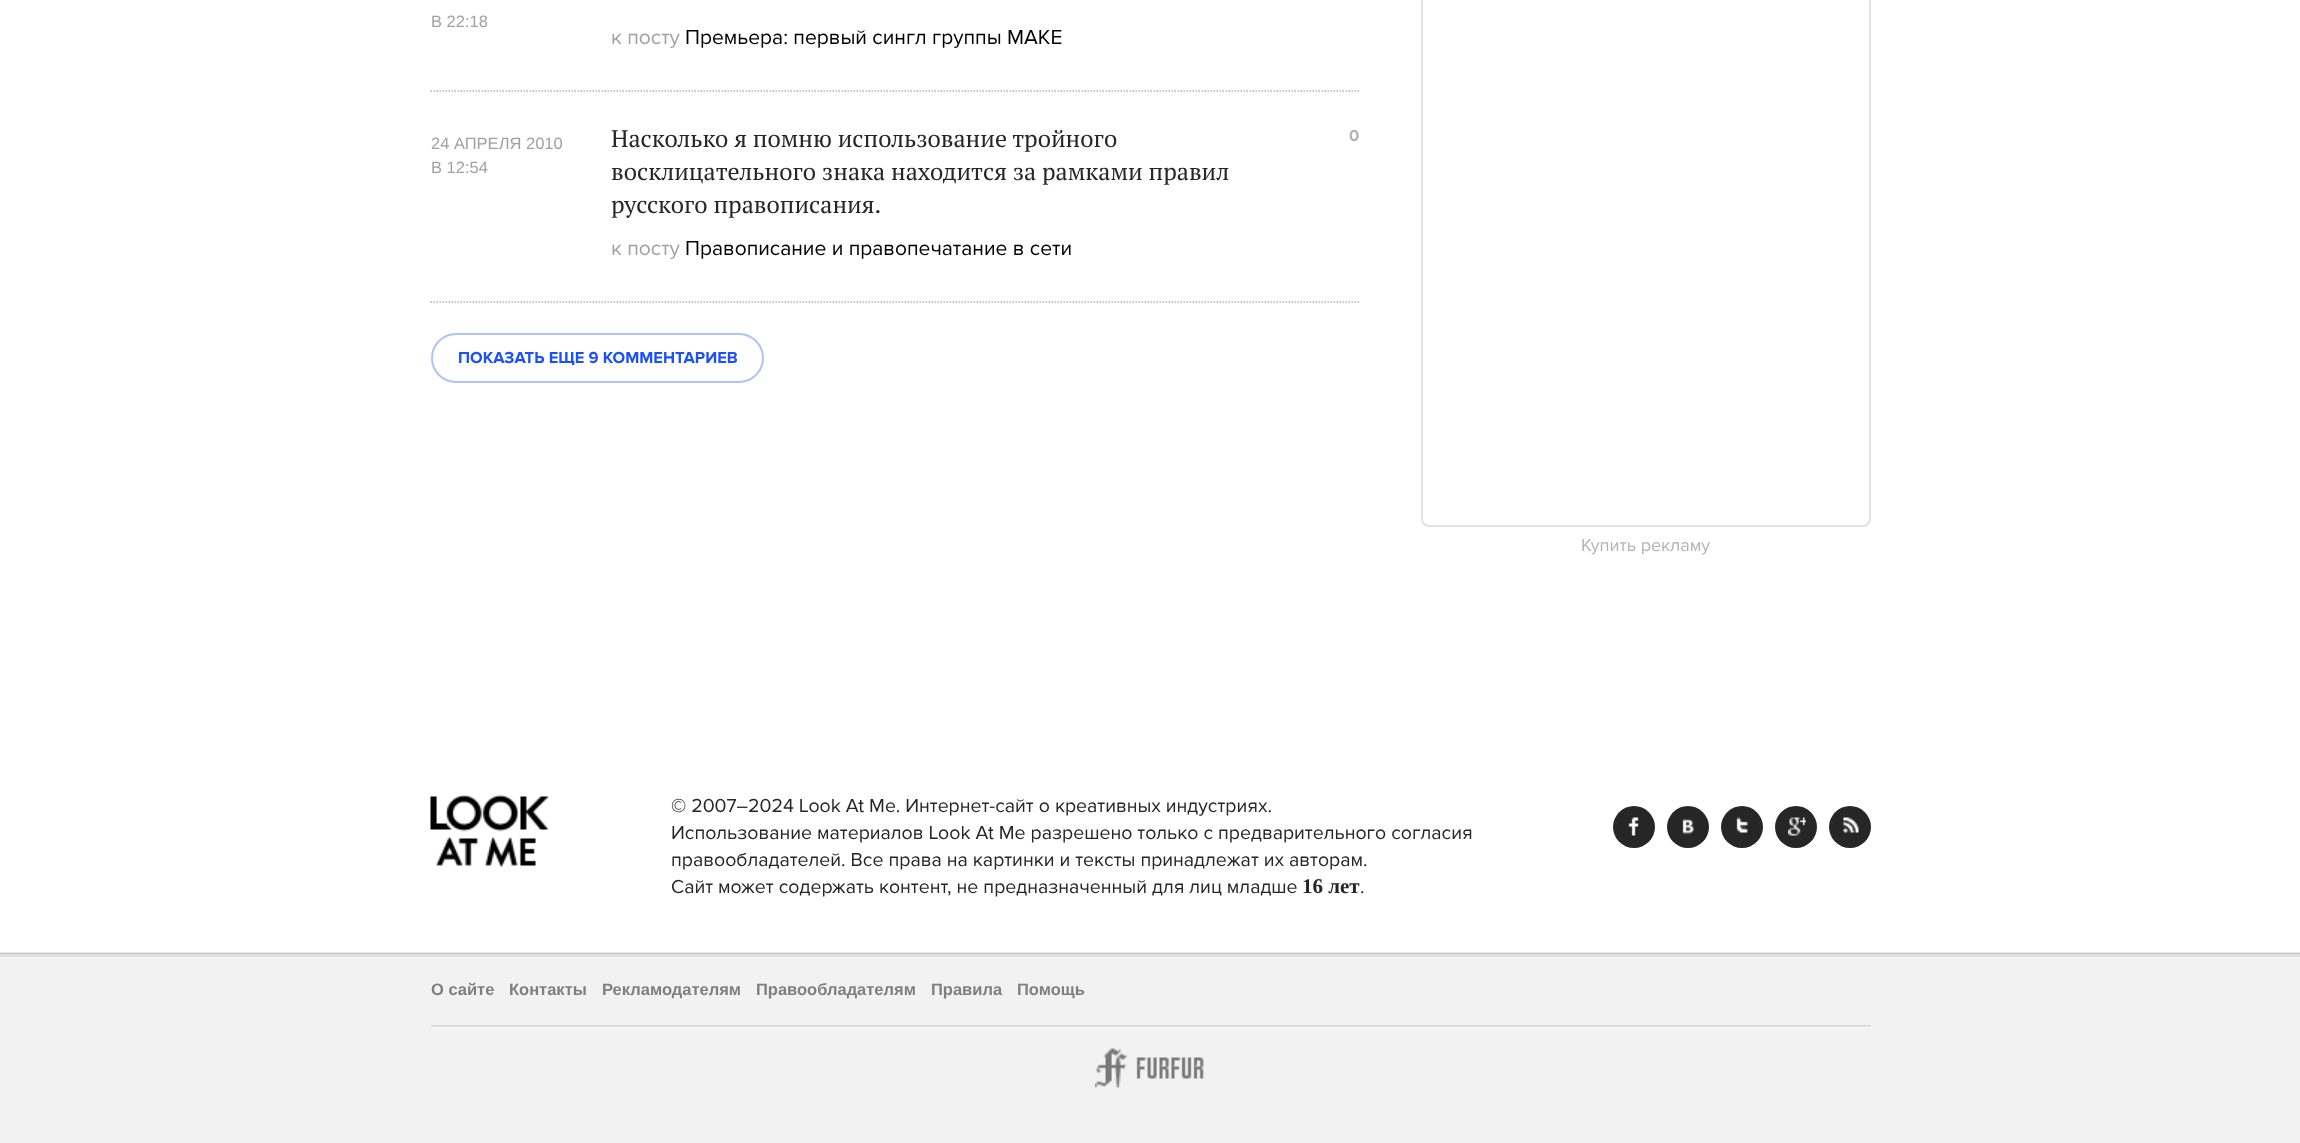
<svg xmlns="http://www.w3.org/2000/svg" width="2300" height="1143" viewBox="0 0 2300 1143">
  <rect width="100%" height="100%" fill="#ffffff"/>
  <path d="M430.5 91H1360.5" fill="none" stroke="#b3b3b3" stroke-width="1.5" stroke-dasharray="1.5 1.5"/>
  <text x="431" y="27" font-family="Liberation Sans" font-size="16.5" fill="#a1a1a1">В 22:18</text>
  <text x="611" y="44" font-family="Proxima Nova" font-size="21" fill="#a1a1a1">к посту</text>
  <text x="685" y="44" font-family="Proxima Nova" font-size="21" fill="#000000">Премьера: первый сингл группы MAKE</text>
  <path d="M430.5 302H1360.5" fill="none" stroke="#b3b3b3" stroke-width="1.5" stroke-dasharray="1.5 1.5"/>
  <text x="611" y="147" font-family="PT Serif" font-size="24" fill="#262626">Насколько я помню использование тройного</text>
  <text x="611" y="180" font-family="PT Serif" font-size="24" fill="#262626">восклицательного знака находится за рамками правил</text>
  <text x="611" y="213" font-family="PT Serif" font-size="24" fill="#262626">русского правописания.</text>
  <text x="1349" y="141" font-family="Proxima Nova" font-size="16.5" font-weight="bold" letter-spacing="1" fill="#b3b3b3">0</text>
  <text x="431" y="149" font-family="Liberation Sans" font-size="16.5" fill="#a1a1a1">24 АПРЕЛЯ 2010</text>
  <text x="431" y="173" font-family="Liberation Sans" font-size="16.5" fill="#a1a1a1">В 12:54</text>
  <text x="611" y="255" font-family="Proxima Nova" font-size="21" fill="#a1a1a1">к посту</text>
  <text x="685" y="255" font-family="Proxima Nova" font-size="21" fill="#000000">Правописание и правопечатание в сети</text>
  <rect x="432" y="334" width="331" height="48" rx="24" fill="none" stroke="#afc2fe" stroke-width="2"/>
  <text x="458" y="363" font-family="Proxima Nova" font-size="16.5" font-weight="bold" fill="#1b50fd">ПОКАЗАТЬ ЕЩЕ 9 КОММЕНТАРИЕВ</text>
  <rect x="1422" y="-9" width="448" height="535" rx="7" fill="none" stroke="#e1e1e1" stroke-width="2"/>
  <text x="1581" y="551" font-family="Proxima Nova" font-size="18" fill="#b3b3b3">Купить рекламу</text>
  <image x="430" y="795" width="119" height="72" href="img1.png"/>
  <text x="671" y="812" font-family="Proxima Nova" font-size="19.5" fill="#262626">© 2007–2024 Look At Me. Интернет-сайт о креативных индустриях.</text>
  <text x="671" y="839" font-family="Proxima Nova" font-size="19.5" fill="#262626">Использование материалов Look At Me разрешено только с предварительного согласия</text>
  <text x="671" y="866" font-family="Proxima Nova" font-size="19.5" fill="#262626">правообладателей. Все права на картинки и тексты принадлежат их авторам.</text>
  <text x="671" y="893" font-family="Proxima Nova" font-size="19.5" fill="#262626">Сайт может содержать контент, не предназначенный для лиц младше</text>
  <text x="1302" y="893" font-family="Liberation Serif" font-size="21" font-weight="bold" fill="#262626">16 лет</text>
  <text x="1360" y="893" font-family="Proxima Nova" font-size="19.5" fill="#262626">.</text>
  <circle cx="1634" cy="827" r="21" fill="#262626"/>
  <image x="1628" y="817" width="11" height="19" href="img2.png"/>
  <circle cx="1688" cy="827" r="21" fill="#262626"/>
  <image x="1682" y="818" width="12" height="17" href="img3.png"/>
  <circle cx="1742" cy="827" r="21" fill="#262626"/>
  <image x="1736" y="817" width="12" height="16" href="img4.png"/>
  <circle cx="1796" cy="827" r="21" fill="#262626"/>
  <image x="1788" y="817" width="18" height="19" href="img5.png"/>
  <circle cx="1850" cy="827" r="21" fill="#262626"/>
  <image x="1843" y="817" width="16" height="16" href="img6.png"/>
  <rect x="0" y="953" width="2300" height="190" fill="#f2f2f2"/>
  <image x="0" y="952" width="2300" height="5" href="img7.png"/>
  <rect x="431" y="1027" width="1440" height="1" fill="#fbfbfa"/>
  <text x="431" y="995" font-family="Liberation Sans" font-size="16.5" font-weight="bold" fill="#808080">О сайте</text>
  <text x="509" y="995" font-family="Liberation Sans" font-size="16.5" font-weight="bold" fill="#808080">Контакты</text>
  <text x="602" y="995" font-family="Liberation Sans" font-size="16.5" font-weight="bold" fill="#808080">Рекламодателям</text>
  <text x="756" y="995" font-family="Liberation Sans" font-size="16.5" font-weight="bold" fill="#808080">Правообладателям</text>
  <text x="931" y="995" font-family="Liberation Sans" font-size="16.5" font-weight="bold" fill="#808080">Правила</text>
  <text x="1017" y="995" font-family="Liberation Sans" font-size="16.5" font-weight="bold" fill="#808080">Помощь</text>
  <rect x="431" y="1025" width="1440" height="2" fill="#dddddd"/>
  <image x="1095" y="1048" width="110" height="40" href="img8.png"/>
</svg>
